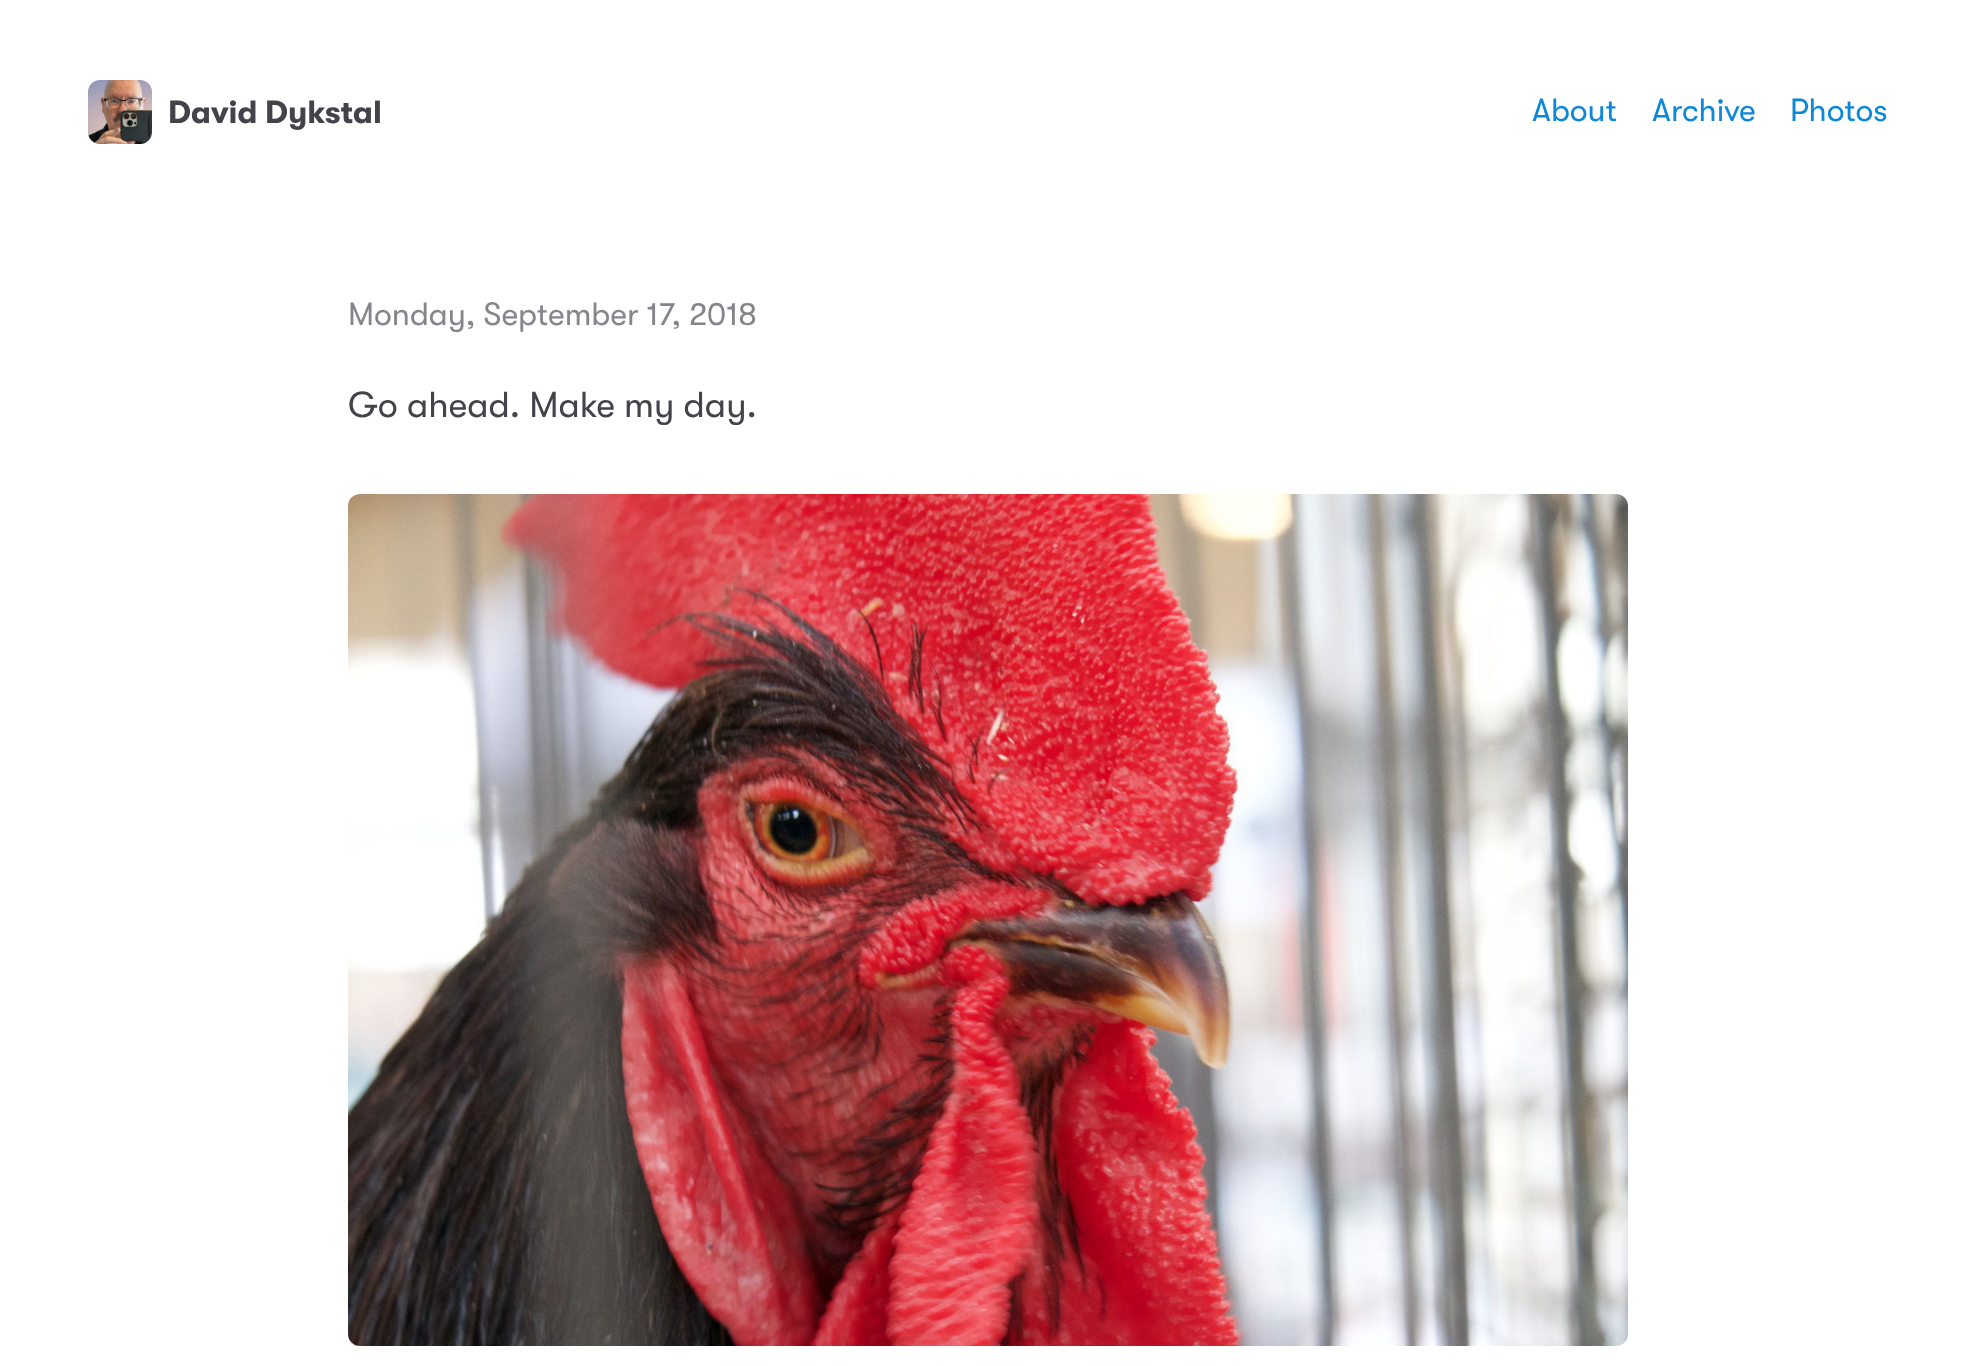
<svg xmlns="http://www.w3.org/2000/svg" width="1975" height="1366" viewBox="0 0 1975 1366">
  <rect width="100%" height="100%" fill="#ffffff"/>
  <image x="88" y="80" width="64" height="64" href="img1.png"/>
  <text x="168" y="123" font-family="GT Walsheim" font-size="32" font-weight="bold" fill="#42444a">David Dykstal</text>
  <text x="1532" y="121" font-family="GT Walsheim" font-size="32" fill="#0d88d8">About</text>
  <text x="1652" y="121" font-family="GT Walsheim" font-size="32" fill="#0d88d8">Archive</text>
  <text x="1790" y="121" font-family="GT Walsheim" font-size="32" fill="#0d88d8">Photos</text>
  <text x="348" y="325" font-family="GT Walsheim" font-size="32" fill="#84868b">Monday, September 17, 2018</text>
  <text x="348" y="417" font-family="GT Walsheim" font-size="36" fill="#42444a">Go ahead. Make my day.</text>
  <image x="348" y="494" width="1280" height="852" href="img2.png"/>
</svg>
